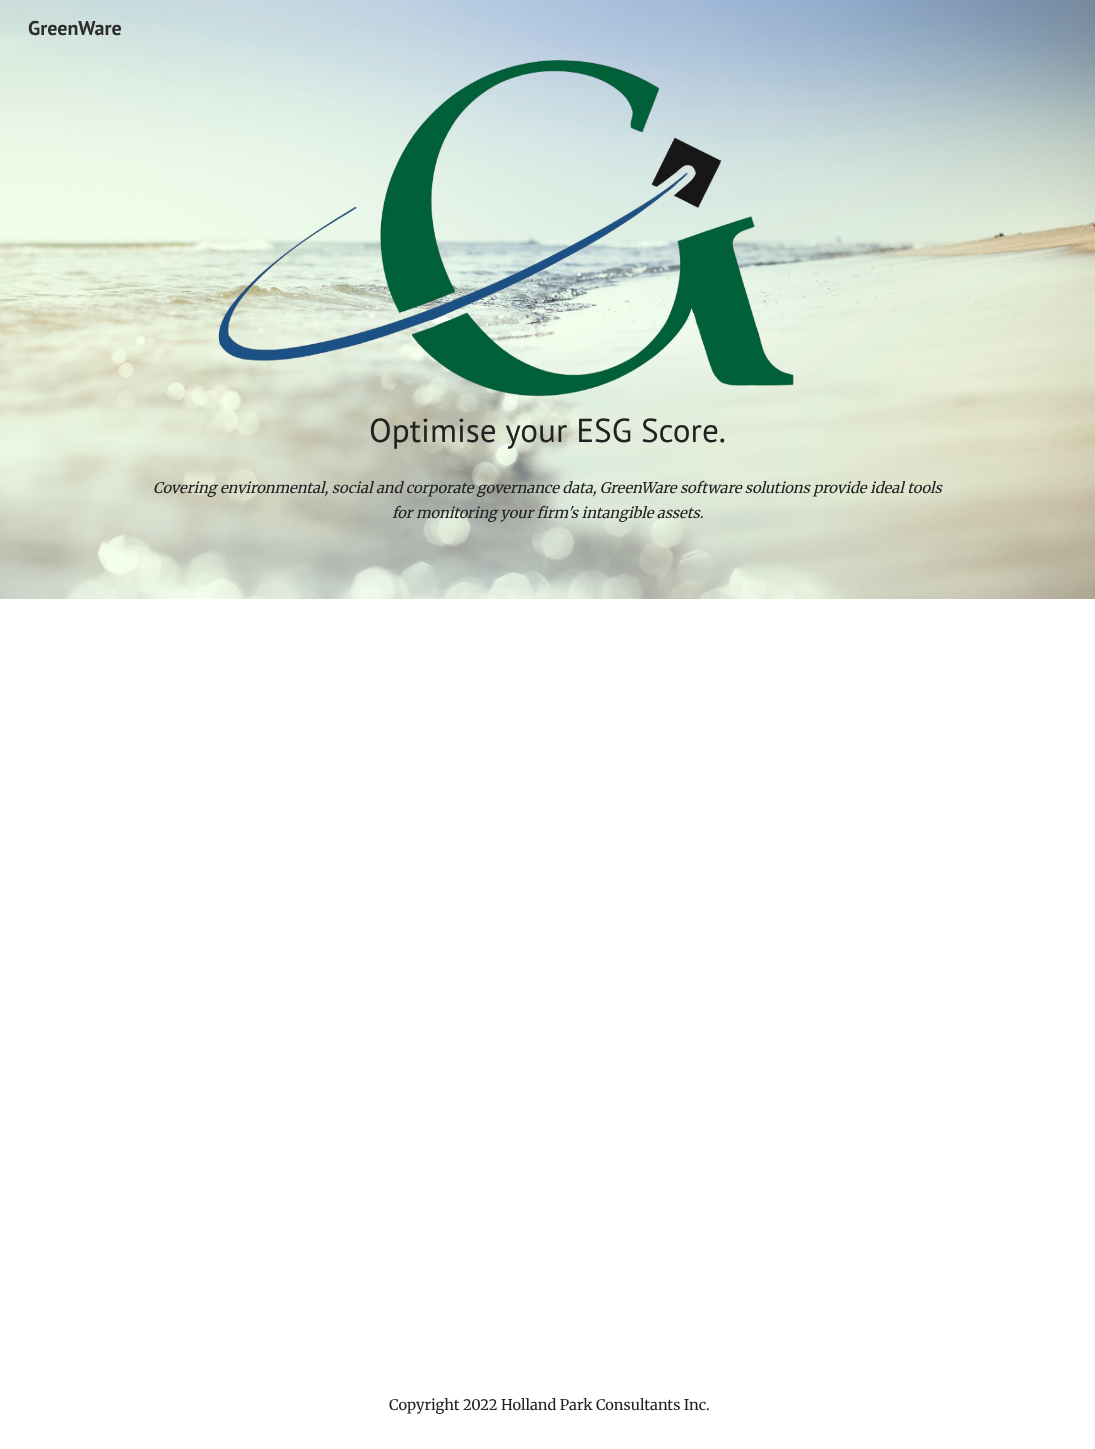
<svg xmlns="http://www.w3.org/2000/svg" width="1095" height="1449" viewBox="0 0 1095 1449">
  <rect width="100%" height="100%" fill="#ffffff"/>
  <image x="0" y="0" width="1095" height="599" href="img1.png"/>
  <text x="28" y="35" font-family="PT Sans" font-size="20" font-weight="bold" fill="#2a2d2c">GreenWare</text>
  <image x="218" y="60" width="576" height="337" href="img2.png"/>
  <text x="369" y="442" font-family="PT Sans" font-size="33.25" fill="#212121">Optimise your ESG Score.</text>
  <text x="153" y="493" font-family="Merriweather" font-size="14.67" font-style="italic" fill="#212121">Covering environmental, social and corporate governance data, GreenWare software solutions provide ideal tools</text>
  <text x="392" y="518" font-family="Merriweather" font-size="14.67" font-style="italic" fill="#212121">for monitoring your firm's intangible assets.</text>
  <text x="389" y="1410" font-family="Merriweather" font-size="14.67" fill="#212121">Copyright 2022 Holland Park Consultants Inc.</text>
</svg>
